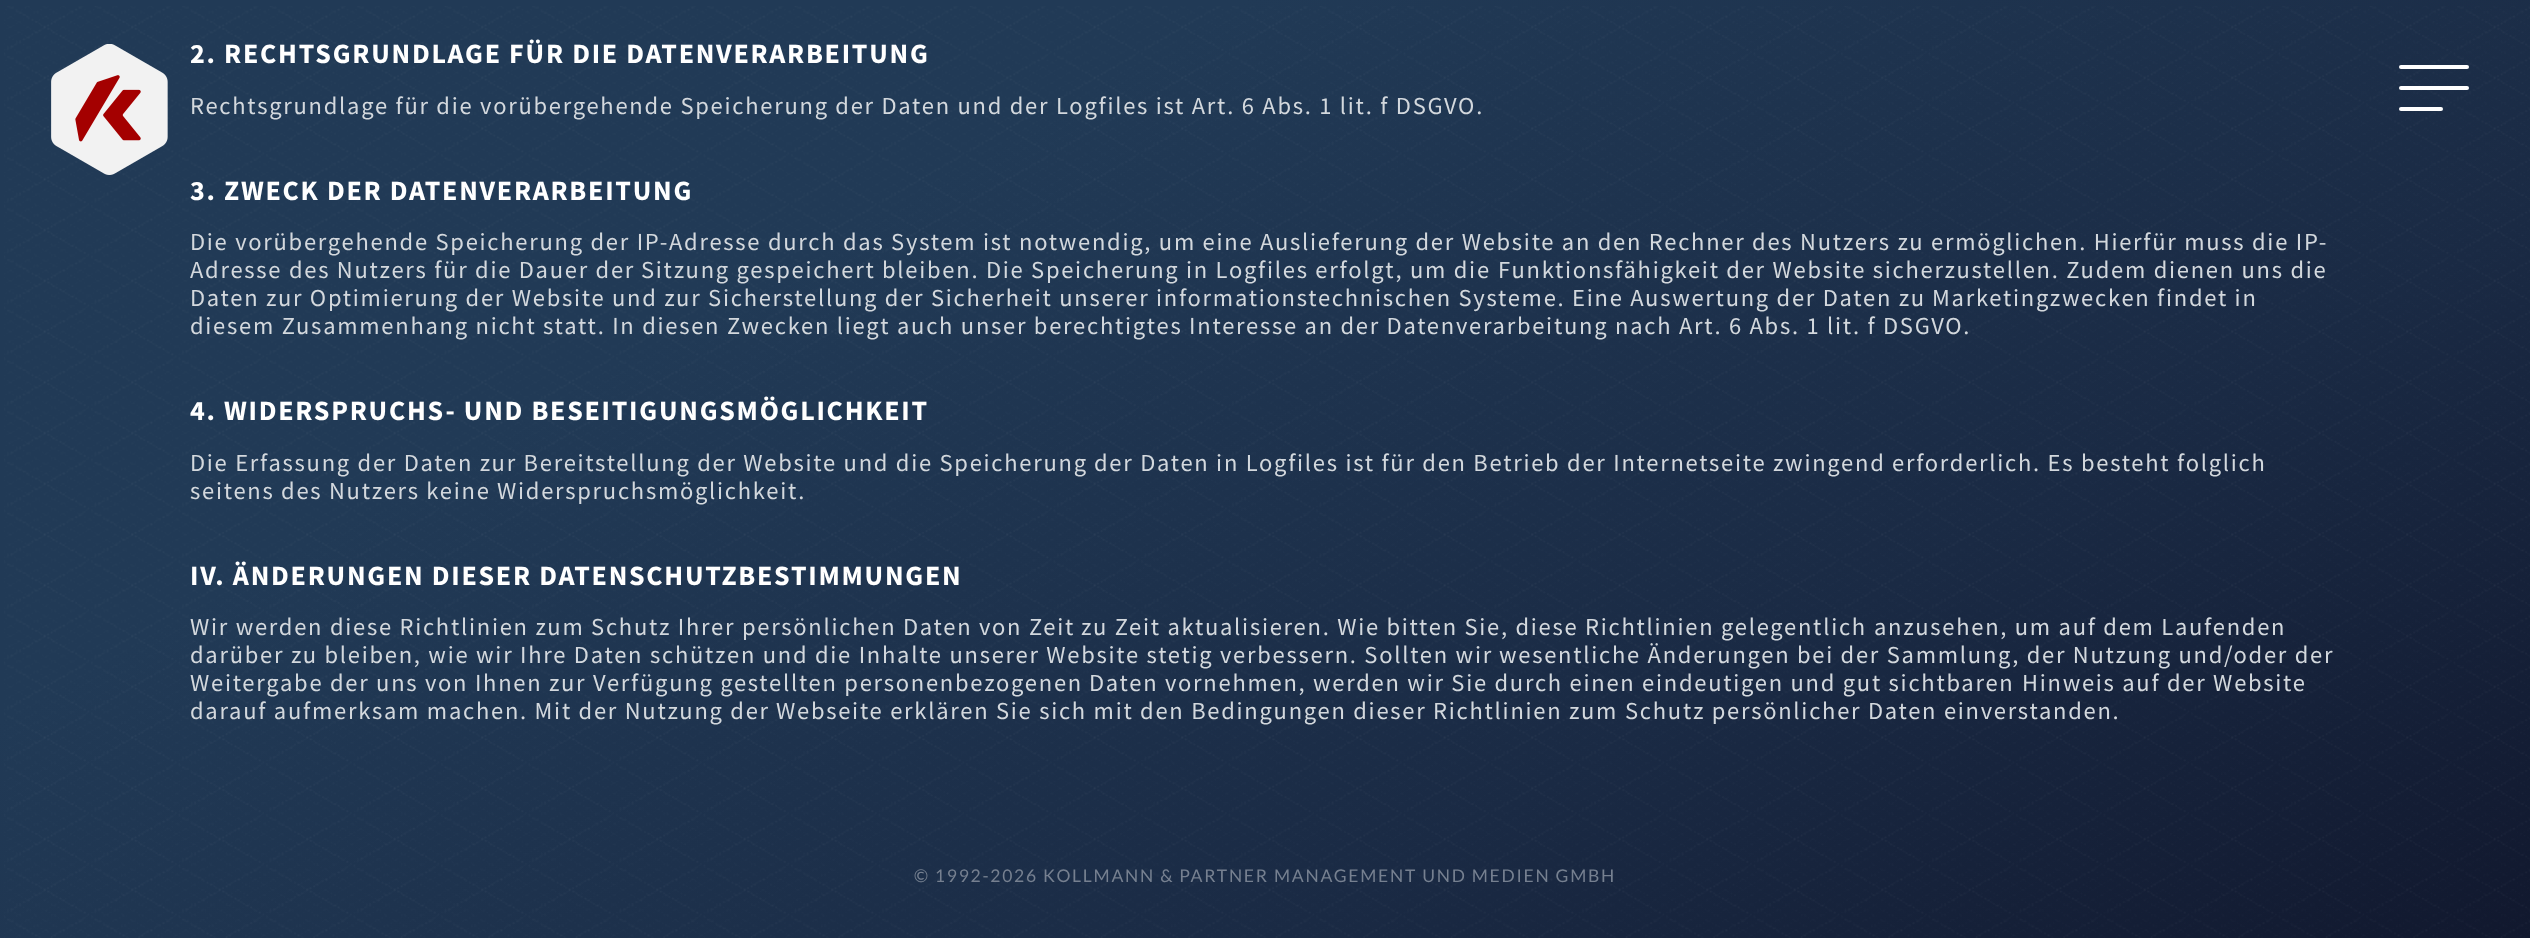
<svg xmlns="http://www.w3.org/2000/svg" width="2530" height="938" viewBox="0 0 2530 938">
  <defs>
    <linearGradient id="g1" gradientUnits="userSpaceOnUse" x1="746" y1="-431" x2="1785" y2="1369"><stop offset="0" stop-color="#213a56"/><stop offset="0.3" stop-color="#213a56"/><stop offset="0.7" stop-color="#1a2a44"/><stop offset="1" stop-color="#11182e"/></linearGradient>
  </defs>
  <rect width="100%" height="100%" fill="#ffffff"/>
  <rect x="0" y="0" width="2530" height="938" fill="url(#g1)"/>
  <image x="4" y="6" width="2526" height="932" href="img1.png"/>
  <image x="51" y="44" width="117" height="131" href="img2.png"/>
  <text x="190" y="63" font-family="Source Sans Pro" font-size="28" font-weight="bold" letter-spacing="1.75" fill="#ffffff">2. RECHTSGRUNDLAGE FÜR DIE DATENVERARBEITUNG</text>
  <text x="190" y="114" font-family="Source Sans Pro" font-size="24.5" letter-spacing="1.75" fill="#d3d8dd">Rechtsgrundlage für die vorübergehende Speicherung der Daten und der</text>
  <text x="1056" y="114" font-family="Source Sans Pro" font-size="24.5" letter-spacing="1.75" fill="#d3d8dd">Logfiles ist Art. 6 Abs. 1 lit. f DSGVO.</text>
  <text x="190" y="200" font-family="Source Sans Pro" font-size="28" font-weight="bold" letter-spacing="1.75" fill="#ffffff">3. ZWECK DER DATENVERARBEITUNG</text>
  <text x="190" y="250" font-family="Source Sans Pro" font-size="24.5" letter-spacing="1.75" fill="#d3d8dd">Die vorübergehende Speicherung der IP-Adresse durch das System ist</text>
  <text x="1019" y="250" font-family="Source Sans Pro" font-size="24.5" letter-spacing="1.75" fill="#d3d8dd">notwendig, um eine Auslieferung der Website an den Rechner des Nutzers zu</text>
  <text x="1931" y="250" font-family="Source Sans Pro" font-size="24.5" letter-spacing="1.75" fill="#d3d8dd">ermöglichen. Hierfür muss die IP-</text>
  <text x="190" y="278" font-family="Source Sans Pro" font-size="24.5" letter-spacing="1.75" fill="#d3d8dd">Adresse des Nutzers für die Dauer der</text>
  <text x="641" y="278" font-family="Source Sans Pro" font-size="24.5" letter-spacing="1.75" fill="#d3d8dd">Sitzung gespeichert bleiben. Die Speicherung in Logfiles erfolgt, um die</text>
  <text x="1498" y="278" font-family="Source Sans Pro" font-size="24.5" letter-spacing="1.75" fill="#d3d8dd">Funktionsfähigkeit der Website sicherzustellen. Zudem dienen uns die</text>
  <text x="190" y="306" font-family="Source Sans Pro" font-size="24.5" letter-spacing="1.75" fill="#d3d8dd">Daten zur Optimierung der Website und zur Sicherstellung der Sicherheit unserer</text>
  <text x="1156" y="306" font-family="Source Sans Pro" font-size="24.5" letter-spacing="1.75" fill="#d3d8dd">informationstechnischen Systeme. Eine Auswertung der Daten zu</text>
  <text x="1932" y="306" font-family="Source Sans Pro" font-size="24.5" letter-spacing="1.75" fill="#d3d8dd">Marketingzwecken findet in</text>
  <text x="190" y="334" font-family="Source Sans Pro" font-size="24.5" letter-spacing="1.75" fill="#d3d8dd">diesem Zusammenhang nicht statt. In diesen</text>
  <text x="727" y="334" font-family="Source Sans Pro" font-size="24.5" letter-spacing="1.75" fill="#d3d8dd">Zwecken liegt auch unser berechtigtes Interesse an der Datenverarbeitung</text>
  <text x="1615" y="334" font-family="Source Sans Pro" font-size="24.5" letter-spacing="1.75" fill="#d3d8dd">nach Art. 6 Abs. 1 lit. f DSGVO.</text>
  <text x="190" y="420" font-family="Source Sans Pro" font-size="28" font-weight="bold" letter-spacing="1.75" fill="#ffffff">4. WIDERSPRUCHS- UND BESEITIGUNGSMÖGLICHKEIT</text>
  <text x="190" y="471" font-family="Source Sans Pro" font-size="24.5" letter-spacing="1.75" fill="#d3d8dd">Die Erfassung der Daten zur Bereitstellung der Website und die Speicherung</text>
  <text x="1094" y="471" font-family="Source Sans Pro" font-size="24.5" letter-spacing="1.75" fill="#d3d8dd">der Daten in Logfiles ist für den Betrieb der Internetseite zwingend</text>
  <text x="1892" y="471" font-family="Source Sans Pro" font-size="24.5" letter-spacing="1.75" fill="#d3d8dd">erforderlich. Es besteht folglich</text>
  <text x="190" y="499" font-family="Source Sans Pro" font-size="24.5" letter-spacing="1.75" fill="#d3d8dd">seitens des Nutzers keine</text>
  <text x="497" y="499" font-family="Source Sans Pro" font-size="24.5" letter-spacing="1.75" fill="#d3d8dd">Widerspruchsmöglichkeit.</text>
  <text x="190" y="585" font-family="Source Sans Pro" font-size="28" font-weight="bold" letter-spacing="1.75" fill="#ffffff">IV. ÄNDERUNGEN DIESER DATENSCHUTZBESTIMMUNGEN</text>
  <text x="190" y="635" font-family="Source Sans Pro" font-size="24.5" letter-spacing="1.75" fill="#d3d8dd">Wir werden diese Richtlinien zum Schutz Ihrer persönlichen Daten von Zeit</text>
  <text x="1081" y="635" font-family="Source Sans Pro" font-size="24.5" letter-spacing="1.75" fill="#d3d8dd">zu Zeit aktualisieren. Wie bitten Sie, diese Richtlinien gelegentlich</text>
  <text x="1874" y="635" font-family="Source Sans Pro" font-size="24.5" letter-spacing="1.75" fill="#d3d8dd">anzusehen, um auf dem Laufenden</text>
  <text x="190" y="663" font-family="Source Sans Pro" font-size="24.5" letter-spacing="1.75" fill="#d3d8dd">darüber zu bleiben, wie wir Ihre Daten</text>
  <text x="650" y="663" font-family="Source Sans Pro" font-size="24.5" letter-spacing="1.75" fill="#d3d8dd">schützen und die Inhalte unserer Website stetig verbessern. Sollten wir</text>
  <text x="1499" y="663" font-family="Source Sans Pro" font-size="24.5" letter-spacing="1.75" fill="#d3d8dd">wesentliche Änderungen bei der Sammlung, der Nutzung und/oder der</text>
  <text x="190" y="691" font-family="Source Sans Pro" font-size="24.5" letter-spacing="1.75" fill="#d3d8dd">Weitergabe der uns von Ihnen zur Verfügung gestellten personenbezogenen</text>
  <text x="1089" y="691" font-family="Source Sans Pro" font-size="24.5" letter-spacing="1.75" fill="#d3d8dd">Daten vornehmen, werden wir Sie durch einen eindeutigen und gut sichtbaren</text>
  <text x="2022" y="691" font-family="Source Sans Pro" font-size="24.5" letter-spacing="1.75" fill="#d3d8dd">Hinweis auf der Website</text>
  <text x="190" y="719" font-family="Source Sans Pro" font-size="24.5" letter-spacing="1.75" fill="#d3d8dd">darauf aufmerksam machen. Mit der Nutzung der</text>
  <text x="776" y="719" font-family="Source Sans Pro" font-size="24.5" letter-spacing="1.75" fill="#d3d8dd">Webseite erklären Sie sich mit den Bedingungen dieser Richtlinien zum</text>
  <text x="1625" y="719" font-family="Source Sans Pro" font-size="24.5" letter-spacing="1.75" fill="#d3d8dd">Schutz persönlicher Daten einverstanden.</text>
  <text x="914" y="882" font-family="Lato" font-size="17.5" letter-spacing="1.75" fill="#768090">© 1992-2026 KOLLMANN &amp; PARTNER MANAGEMENT UND MEDIEN GMBH</text>
  <rect x="2399" y="65" width="70" height="4" rx="2" fill="#ffffff"/>
  <rect x="2399" y="86" width="70" height="4" rx="2" fill="#ffffff"/>
  <rect x="2399" y="107" width="44" height="4" rx="2" fill="#ffffff"/>
</svg>
